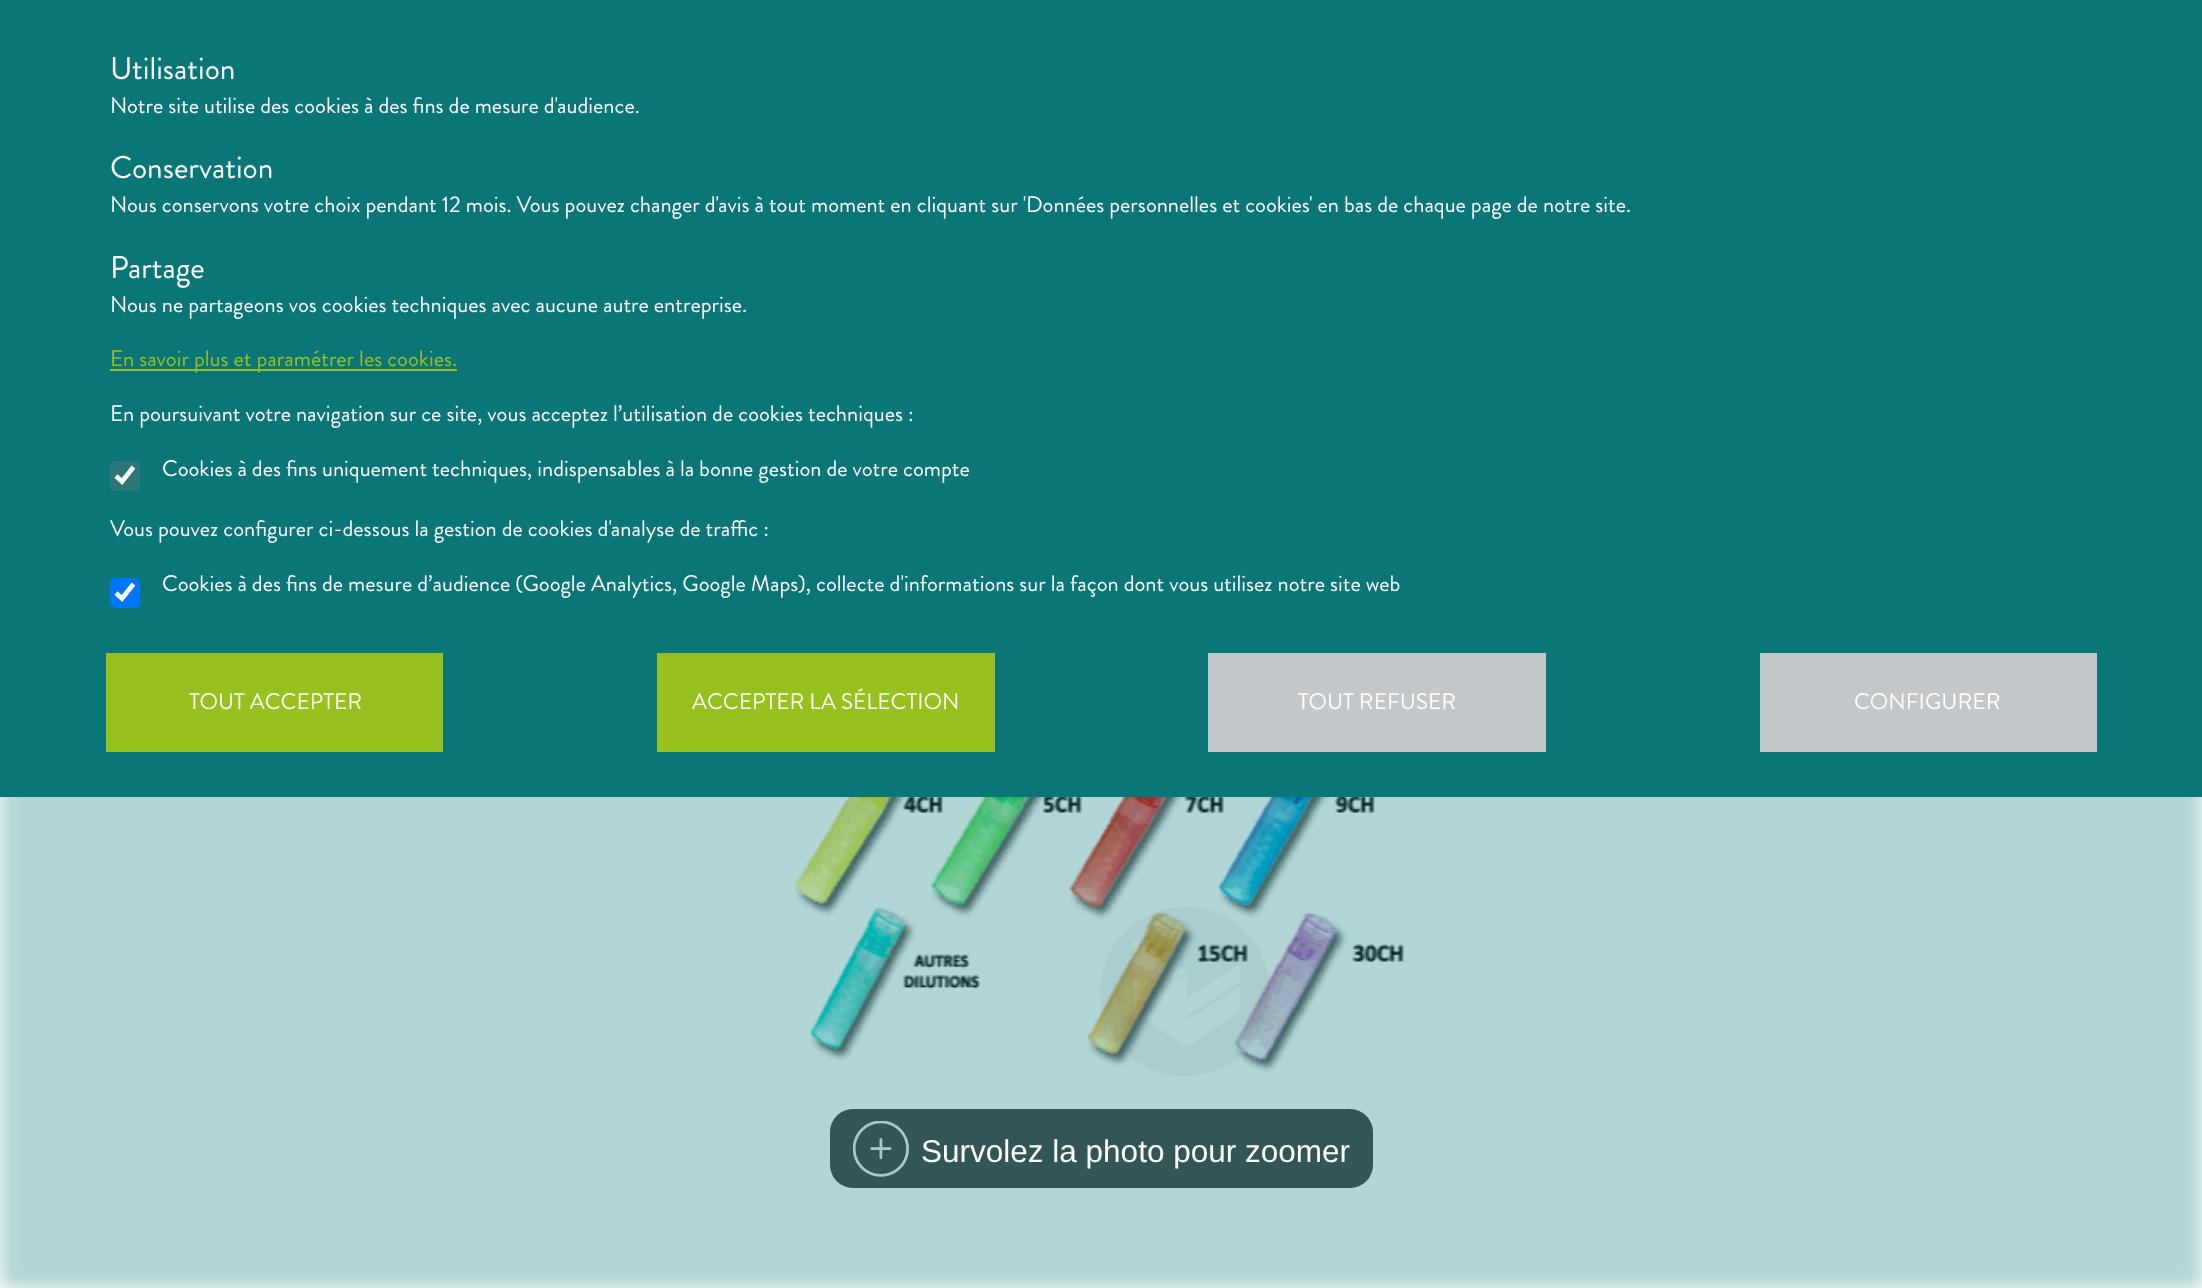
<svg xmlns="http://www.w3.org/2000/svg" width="2202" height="1288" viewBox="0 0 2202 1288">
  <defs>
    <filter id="blur1" x="-50%" y="-200%" width="200%" height="500%"><feGaussianBlur stdDeviation="9"/></filter>
  </defs>
  <rect width="100%" height="100%" fill="#ffffff"/>
  <image x="794" y="797" width="610" height="280" href="img1.png"/>
  <rect x="830" y="1109" width="543" height="79" rx="23" fill="#474747"/>
  <image x="853" y="1121" width="56" height="56" href="img2.png"/>
  <rect x="0" y="0" width="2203" height="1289" fill="#0b7678" fill-opacity="0.3" filter="url(#blur1)"/>
  <rect x="0" y="0" width="2202" height="797" fill="#0b7678"/>
  <text x="110" y="79" font-family="Brandon Grotesque" font-size="31.5" fill="#ffffff">Utilisation</text>
  <text x="110" y="113" font-family="Brandon Grotesque" font-size="22.5" fill="#ffffff">Notre site utilise des cookies à des fins de mesure d'audience.</text>
  <text x="110" y="178" font-family="Brandon Grotesque" font-size="31.5" fill="#ffffff">Conservation</text>
  <text x="110" y="212" font-family="Brandon Grotesque" font-size="22.5" fill="#ffffff">Nous conservons votre choix pendant 12 mois. Vous pouvez changer d'avis à tout moment en cliquant sur 'Données personnelles et cookies' en bas de chaque page de notre site.</text>
  <text x="110" y="278" font-family="Brandon Grotesque" font-size="31.5" fill="#ffffff">Partage</text>
  <text x="110" y="312" font-family="Brandon Grotesque" font-size="22.5" fill="#ffffff">Nous ne partageons vos cookies techniques avec aucune autre entreprise.</text>
  <rect x="110" y="369" width="347" height="2" fill="#98c01e"/>
  <text x="110" y="366" font-family="Brandon Grotesque" font-size="22.5" fill="#98c01e">En savoir plus et paramétrer les cookies.</text>
  <text x="110" y="421" font-family="Brandon Grotesque" font-size="22.5" fill="#ffffff">En poursuivant votre navigation sur ce site, vous acceptez l’utilisation de cookies techniques :</text>
  <rect x="110" y="461" width="30" height="30" rx="5" fill="#2b7677"/>
  <path d="M116 476L122 481.5L133.5 467" fill="none" stroke="#ffffff" stroke-width="4.7"/>
  <text x="162" y="476" font-family="Brandon Grotesque" font-size="22.5" fill="#ffffff">Cookies à des fins uniquement techniques, indispensables à la bonne gestion de votre compte</text>
  <text x="110" y="536" font-family="Brandon Grotesque" font-size="22.5" fill="#ffffff">Vous pouvez configurer ci-dessous la gestion de cookies d'analyse de traffic :</text>
  <rect x="110" y="578" width="30" height="30" rx="5" fill="#0075ff"/>
  <path d="M116 593L122 598.5L133.5 584" fill="none" stroke="#ffffff" stroke-width="4.7"/>
  <text x="162" y="591" font-family="Brandon Grotesque" font-size="22.5" fill="#ffffff">Cookies à des fins de mesure d’audience (Google Analytics, Google Maps), collecte d'informations sur la façon dont vous utilisez notre site web</text>
  <rect x="106" y="653" width="337" height="99" fill="#98c01e"/>
  <text x="189" y="709" font-family="Brandon Grotesque" font-size="22.5" fill="#ffffff">TOUT ACCEPTER</text>
  <rect x="657" y="653" width="338" height="99" fill="#98c01e"/>
  <text x="692" y="709" font-family="Brandon Grotesque" font-size="22.5" fill="#ffffff">ACCEPTER LA SÉLECTION</text>
  <rect x="1208" y="653" width="338" height="99" fill="#c4c8ca"/>
  <text x="1298" y="709" font-family="Brandon Grotesque" font-size="22.5" fill="#ffffff">TOUT REFUSER</text>
  <rect x="1760" y="653" width="337" height="99" fill="#c4c8ca"/>
  <text x="1854" y="709" font-family="Brandon Grotesque" font-size="22.5" fill="#ffffff">CONFIGURER</text>
  <text x="921" y="1162" font-family="Liberation Sans" font-size="31.5" fill="#ffffff">Survolez la photo pour zoomer</text>
</svg>
